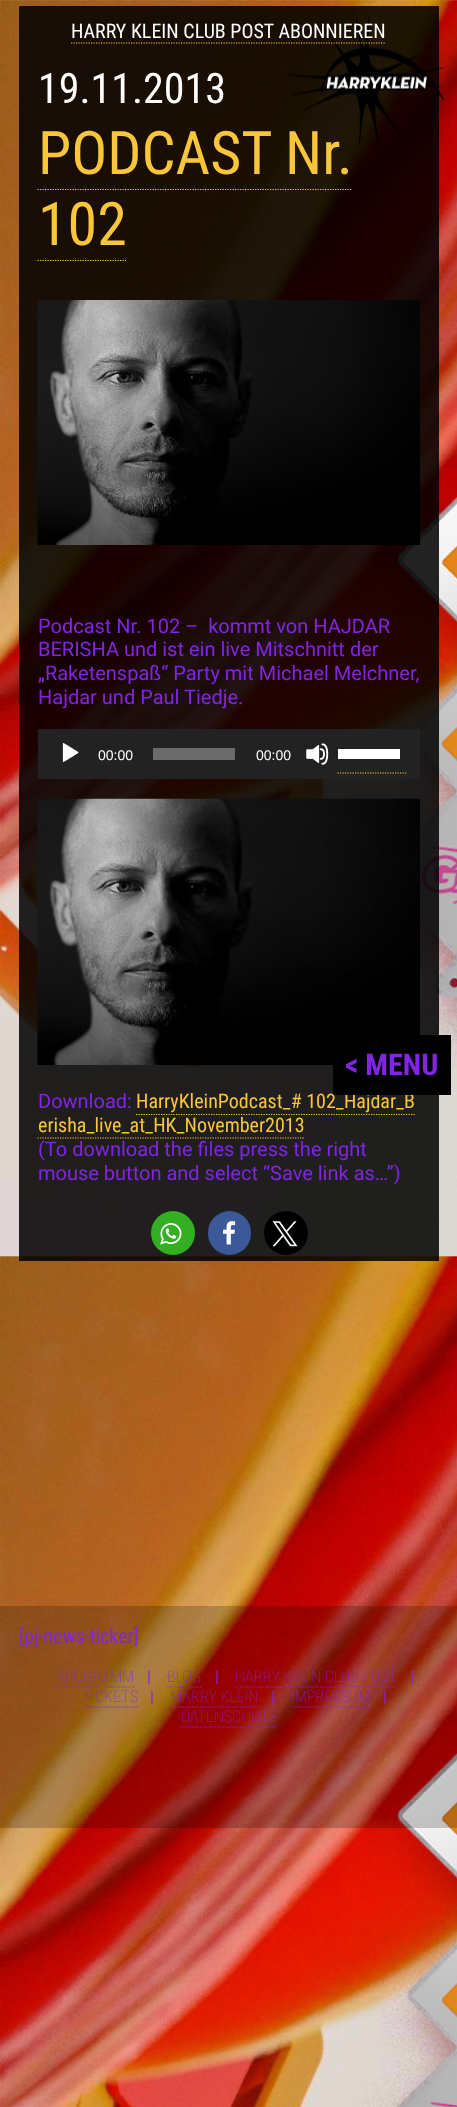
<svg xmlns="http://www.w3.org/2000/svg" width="457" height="2107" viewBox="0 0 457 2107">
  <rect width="100%" height="100%" fill="#ffffff"/>
  <image x="0" y="0" width="457" height="2107" href="img1.png"/>
  <rect x="19" y="6" width="420" height="1255" fill="#000000" fill-opacity="0.86"/>
  <text x="38" y="174" font-family="Roboto Condensed" font-size="60" fill="#f9c639">PODCAST Nr.</text>
  <image x="287" y="16" width="157" height="130" href="img2.png"/>
  <text x="71" y="38" font-family="Roboto Condensed" font-size="20" fill="#ffffff">HARRY KLEIN CLUB POST ABONNIEREN</text>
  <path d="M71 43H386" fill="none" stroke="#f9c639" stroke-width="1.2" stroke-dasharray="1.25 1.25"/>
  <text x="38" y="103" font-family="Roboto Condensed" font-size="42" fill="#ffffff">19.11.2013</text>
  <text x="38" y="245" font-family="Roboto Condensed" font-size="60" fill="#f9c639">102</text>
  <path d="M37.5 189.5H352.5" fill="none" stroke="#f9c639" stroke-width="1.2" stroke-dasharray="1.25 1.25"/>
  <path d="M37.5 260.5H126" fill="none" stroke="#f9c639" stroke-width="1.2" stroke-dasharray="1.25 1.25"/>
  <image x="37" y="300" width="383" height="245" href="img3.png"/>
  <text x="38" y="633" font-family="Roboto" font-size="20" fill="#8224e3" xml:space="preserve">Podcast Nr. 102 –  kommt von HAJDAR</text>
  <text x="38" y="656" font-family="Roboto" font-size="20" fill="#8224e3">BERISHA und ist ein live Mitschnitt der</text>
  <text x="38" y="680" font-family="Roboto" font-size="20" fill="#8224e3">„Raketenspaß“ Party mit Michael Melchner,</text>
  <text x="38" y="704" font-family="Roboto" font-size="20" fill="#8224e3">Hajdar und Paul Tiedje.</text>
  <rect x="38" y="729" width="382" height="50" fill="#222222"/>
  <image x="62" y="743" width="17" height="19" href="img4.png"/>
  <text x="98" y="760" font-family="Liberation Sans" font-size="14" fill="#ffffff">00:00</text>
  <rect x="153" y="748" width="82" height="12" fill="#6b6b6b"/>
  <text x="256" y="760" font-family="Liberation Sans" font-size="14" fill="#ffffff">00:00</text>
  <image x="306" y="743" width="23" height="22" href="img5.png"/>
  <path d="M337.5 773H407.5" fill="none" stroke="#f9c639" stroke-width="1.2" stroke-dasharray="1.25 1.25"/>
  <rect x="338" y="749" width="62" height="10" fill="#ffffff"/>
  <image x="37" y="798" width="383" height="267" href="img6.png"/>
  <text x="38" y="1108" font-family="Roboto" font-size="20" fill="#8224e3">Download:</text>
  <text x="136" y="1108" font-family="Roboto Condensed" font-size="20" fill="#f9c639">HarryKleinPodcast_# 102_Hajdar_B</text>
  <text x="38" y="1132" font-family="Roboto Condensed" font-size="20" fill="#f9c639">erisha_live_at_HK_November2013</text>
  <path d="M136 1114.5H415" fill="none" stroke="#f9c639" stroke-width="1.2" stroke-dasharray="1.25 1.25"/>
  <path d="M37.5 1138H304" fill="none" stroke="#f9c639" stroke-width="1.2" stroke-dasharray="1.25 1.25"/>
  <text x="38" y="1156" font-family="Roboto" font-size="20" fill="#8224e3">(To download the files press the right</text>
  <text x="38" y="1180" font-family="Roboto" font-size="20" fill="#8224e3">mouse button and select “Save link as…”)</text>
  <circle cx="173" cy="1233" r="22" fill="#34af23"/>
  <image x="160" y="1223" width="22" height="22" href="img7.png"/>
  <rect x="208" y="1211" width="43" height="44" rx="21.5" fill="#3b5998"/>
  <image x="223" y="1221" width="13" height="24" href="img8.png"/>
  <circle cx="286" cy="1233" r="22" fill="#000000"/>
  <image x="272" y="1221" width="26" height="26" href="img9.png"/>
  <rect x="333" y="1035" width="118" height="60" fill="#000000"/>
  <text x="345" y="1075" font-family="Roboto Condensed" font-size="30" font-weight="bold" fill="#8224e3">&lt; MENU</text>
  <rect x="0" y="1606" width="457" height="222" fill="#000000" fill-opacity="0.2"/>
  <text x="19" y="1643" font-family="Roboto Condensed" font-size="20" fill="#8224e3">[pj-news-ticker]</text>
  <path d="M56 1687H135" fill="none" stroke="#8224e3" stroke-width="1.2" stroke-dasharray="1.25 1.25"/>
  <text x="56" y="1682" font-family="Roboto Condensed" font-size="16" font-weight="100" fill="#8224e3">PROGRAMM</text>
  <text x="147" y="1682" font-family="Roboto Condensed" font-size="16" fill="#8224e3">|</text>
  <path d="M167.5 1687H202.5" fill="none" stroke="#8224e3" stroke-width="1.2" stroke-dasharray="1.25 1.25"/>
  <text x="167" y="1682" font-family="Roboto Condensed" font-size="16" font-weight="100" fill="#8224e3">BLOG</text>
  <text x="215" y="1682" font-family="Roboto Condensed" font-size="16" fill="#8224e3">|</text>
  <path d="M235 1687H397.5" fill="none" stroke="#8224e3" stroke-width="1.2" stroke-dasharray="1.25 1.25"/>
  <text x="235" y="1682" font-family="Roboto Condensed" font-size="16" font-weight="100" fill="#8224e3">HARRY KLEIN CLUB POST</text>
  <text x="410" y="1682" font-family="Roboto Condensed" font-size="16" fill="#8224e3">|</text>
  <path d="M84 1707H137.5" fill="none" stroke="#8224e3" stroke-width="1.2" stroke-dasharray="1.25 1.25"/>
  <text x="83" y="1702" font-family="Roboto Condensed" font-size="16" font-weight="100" fill="#8224e3">TICKETS</text>
  <text x="150" y="1702" font-family="Roboto Condensed" font-size="16" fill="#8224e3">|</text>
  <path d="M170 1707H259" fill="none" stroke="#8224e3" stroke-width="1.2" stroke-dasharray="1.25 1.25"/>
  <text x="170" y="1702" font-family="Roboto Condensed" font-size="16" font-weight="100" fill="#8224e3">MARRY KLEIN</text>
  <text x="271" y="1702" font-family="Roboto Condensed" font-size="16" fill="#8224e3">|</text>
  <path d="M291 1707H370" fill="none" stroke="#8224e3" stroke-width="1.2" stroke-dasharray="1.25 1.25"/>
  <text x="291" y="1702" font-family="Roboto Condensed" font-size="16" font-weight="100" fill="#8224e3">IMPRESSUM</text>
  <text x="383" y="1702" font-family="Roboto Condensed" font-size="16" fill="#8224e3">|</text>
  <path d="M180 1727H277.5" fill="none" stroke="#8224e3" stroke-width="1.2" stroke-dasharray="1.25 1.25"/>
  <text x="181" y="1722" font-family="Roboto Condensed" font-size="16" font-weight="100" fill="#8224e3">DATENSCHUTZ</text>
</svg>
